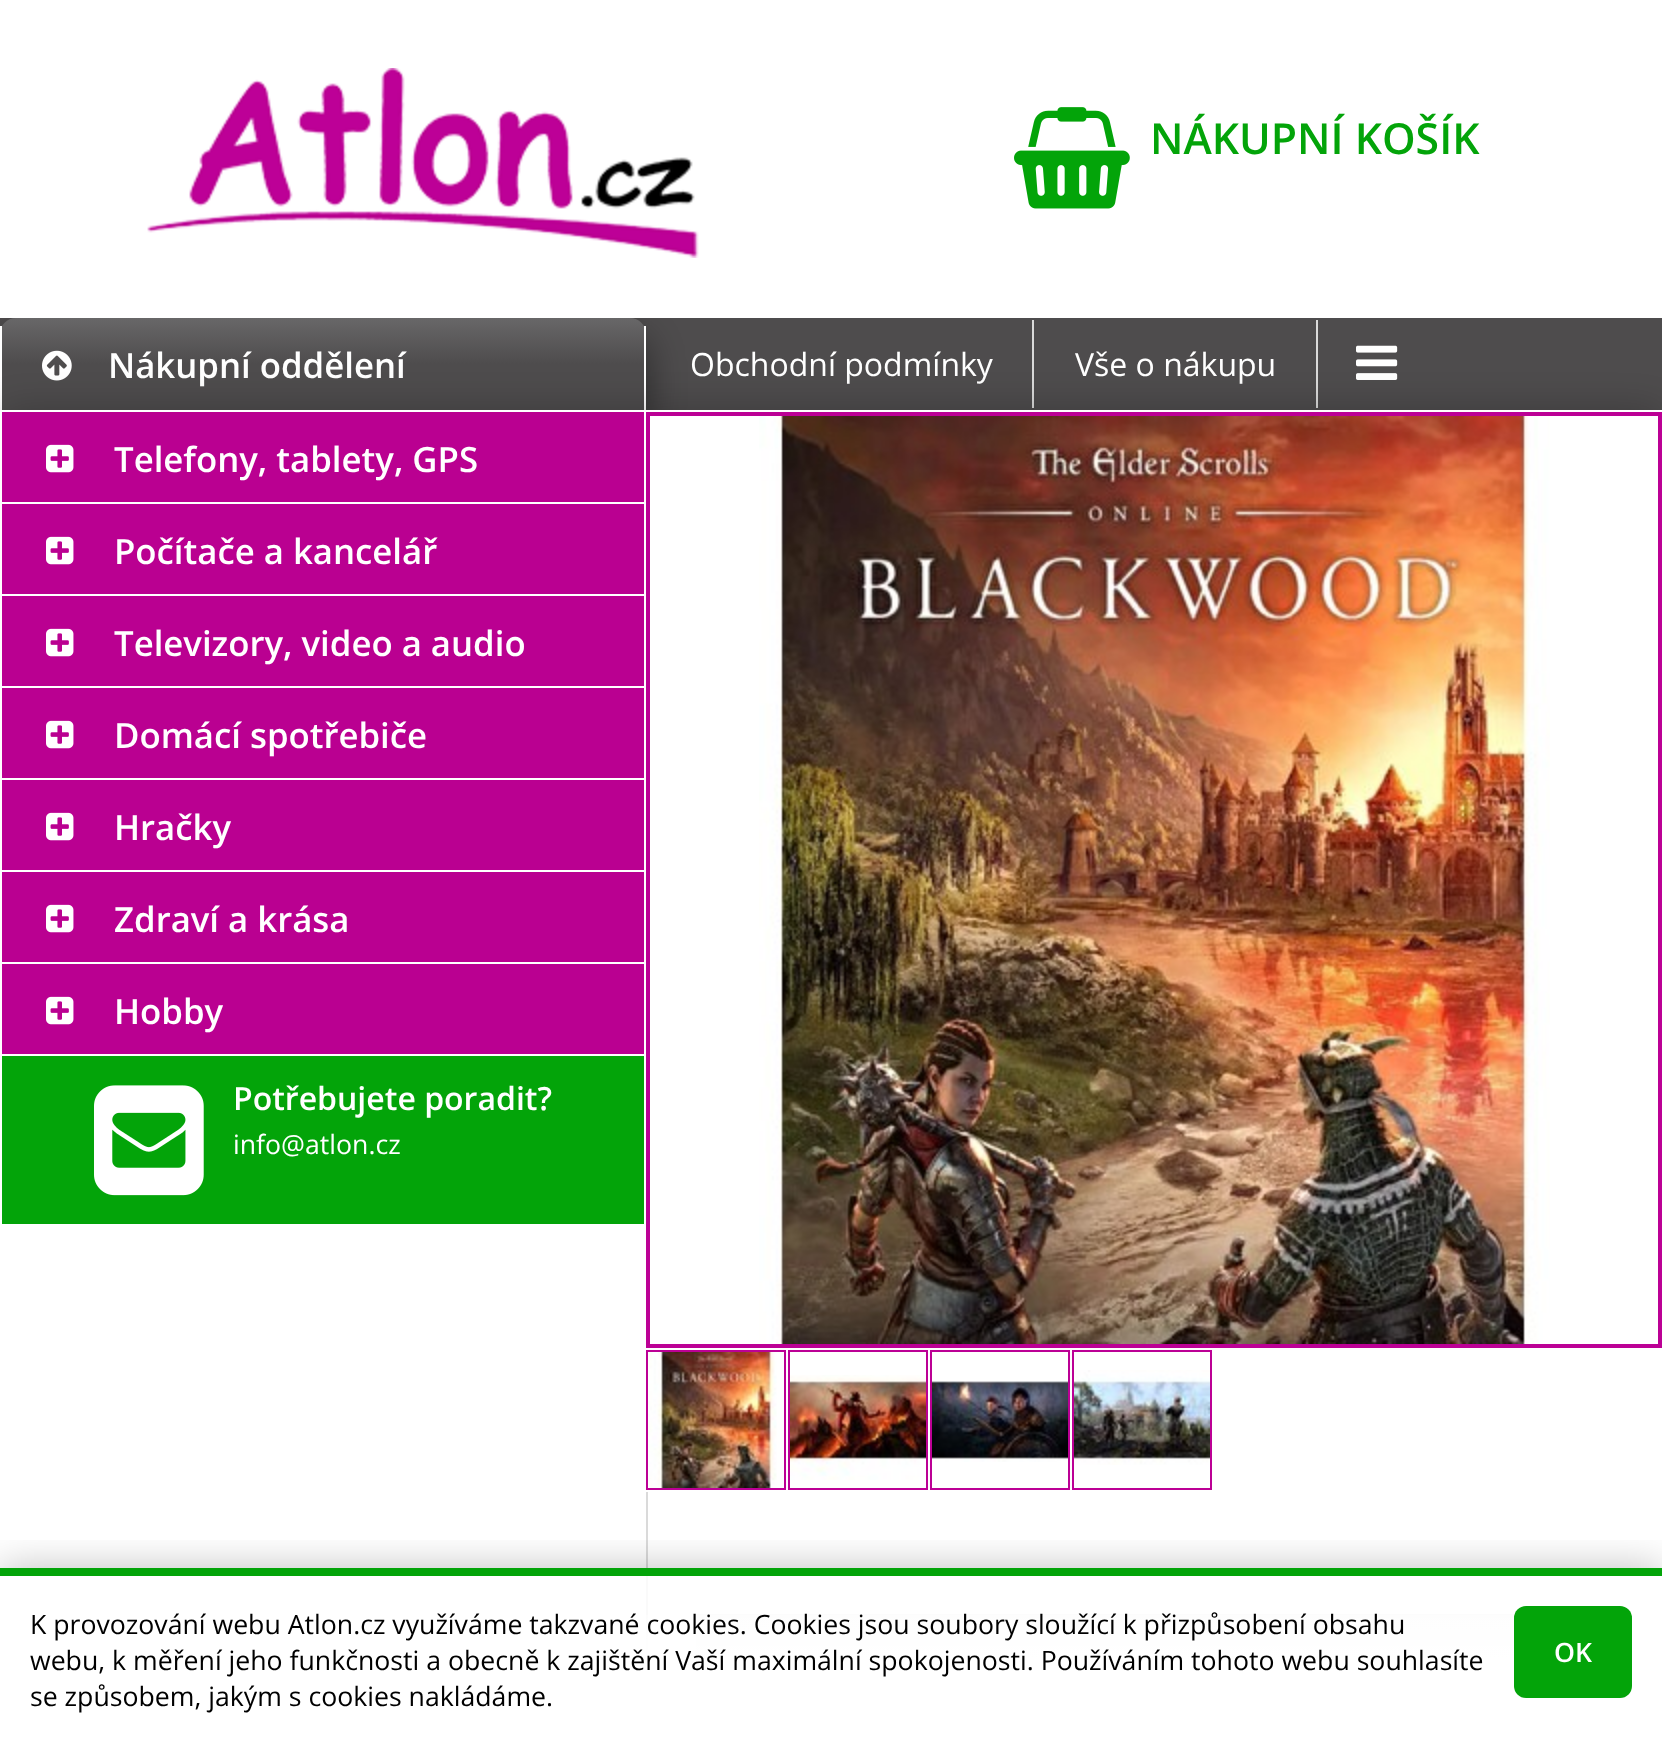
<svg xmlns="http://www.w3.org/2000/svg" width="1662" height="1743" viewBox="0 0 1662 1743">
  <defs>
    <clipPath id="clip1"><rect x="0" y="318" width="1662" height="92"/></clipPath>
    <filter id="blur1" x="-50%" y="-200%" width="200%" height="500%"><feGaussianBlur stdDeviation="20"/></filter>
    <linearGradient id="g1" gradientUnits="userSpaceOnUse" x1="323" y1="318" x2="323" y2="410"><stop offset="0" stop-color="#686768"/><stop offset="0.5" stop-color="#4e4c4d"/><stop offset="1" stop-color="#4e4c4d"/></linearGradient>
    <clipPath id="clip2"><rect x="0" y="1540" width="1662" height="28"/></clipPath>
    <linearGradient id="g2" gradientUnits="userSpaceOnUse" x1="831" y1="1576" x2="831" y2="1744"><stop offset="0" stop-color="#ffffff" stop-opacity="0"/><stop offset="0.5" stop-color="#ffffff"/><stop offset="1" stop-color="#ffffff"/></linearGradient>
  </defs>
  <rect width="100%" height="100%" fill="#ffffff"/>
  <image x="147" y="68" width="552" height="190" href="img1.png"/>
  <image x="1014" y="107" width="116" height="102" href="img2.png"/>
  <text x="1150" y="154" font-family="Open Sans" font-size="42.75" font-weight="600" fill="#03a409">NÁKUPNÍ KOŠÍK</text>
  <rect x="0" y="318" width="1662" height="92" fill="#4e4c4d"/>
  <g clip-path="url(#clip1)">
    <rect x="0" y="338" width="646" height="92" rx="16" fill="#000000" fill-opacity="0.5" filter="url(#blur1)"/>
  </g>
  <path d="M16 318H630C639 318 646 325 646 334V410H0V334C0 325 7 318 16 318Z" fill="url(#g1)"/>
  <rect x="644" y="326" width="2" height="84" fill="#ffffff"/>
  <rect x="0" y="326" width="2" height="84" fill="#ffffff"/>
  <image x="42" y="350" width="30" height="31" href="img3.png"/>
  <text x="108" y="378" font-family="Open Sans" font-size="34.75" font-weight="600" fill="#ffffff">Nákupní oddělení</text>
  <rect x="1032" y="320" width="2" height="88" fill="#dadada"/>
  <text x="690" y="376" font-family="Open Sans" font-size="32" fill="#ffffff">Obchodní podmínky</text>
  <rect x="1316" y="320" width="2" height="88" fill="#dadada"/>
  <text x="1075" y="376" font-family="Open Sans" font-size="32" fill="#ffffff">Vše o nákupu</text>
  <image x="1356" y="345" width="42" height="35" href="img4.png"/>
  <rect x="0" y="410" width="1662" height="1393" fill="#000000" fill-opacity="0.25" filter="url(#blur1)"/>
  <rect x="0" y="416" width="1662" height="1244" fill="#ffffff"/>
  <rect x="644" y="410" width="2" height="6" fill="#ffffff"/>
  <rect x="0" y="410" width="2" height="6" fill="#ffffff"/>
  <rect x="2" y="412" width="642" height="90" fill="#ba0091"/>
  <image x="46" y="444" width="28" height="29" href="img5.png"/>
  <rect x="2" y="410" width="642" height="2" fill="#ffffff"/>
  <text x="114" y="472" font-family="Open Sans" font-size="34.75" font-weight="600" fill="#ffffff">Telefony, tablety, GPS</text>
  <rect x="2" y="504" width="642" height="90" fill="#ba0091"/>
  <image x="46" y="536" width="28" height="29" href="img5.png"/>
  <text x="114" y="564" font-family="Open Sans" font-size="34.75" font-weight="600" fill="#ffffff">Počítače a kancelář</text>
  <rect x="2" y="596" width="642" height="90" fill="#ba0091"/>
  <image x="46" y="628" width="28" height="29" href="img5.png"/>
  <text x="114" y="656" font-family="Open Sans" font-size="34.75" font-weight="600" fill="#ffffff">Televizory, video a audio</text>
  <rect x="2" y="688" width="642" height="90" fill="#ba0091"/>
  <image x="46" y="720" width="28" height="29" href="img5.png"/>
  <text x="114" y="748" font-family="Open Sans" font-size="34.75" font-weight="600" fill="#ffffff">Domácí spotřebiče</text>
  <rect x="2" y="780" width="642" height="90" fill="#ba0091"/>
  <image x="46" y="812" width="28" height="29" href="img5.png"/>
  <text x="114" y="840" font-family="Open Sans" font-size="34.75" font-weight="600" fill="#ffffff">Hračky</text>
  <rect x="2" y="872" width="642" height="90" fill="#ba0091"/>
  <image x="46" y="904" width="28" height="29" href="img5.png"/>
  <text x="114" y="932" font-family="Open Sans" font-size="34.75" font-weight="600" fill="#ffffff">Zdraví a krása</text>
  <rect x="2" y="964" width="642" height="90" fill="#ba0091"/>
  <image x="46" y="996" width="28" height="29" href="img5.png"/>
  <text x="114" y="1024" font-family="Open Sans" font-size="34.75" font-weight="600" fill="#ffffff">Hobby</text>
  <rect x="2" y="1056" width="642" height="168" fill="#03a409"/>
  <image x="94" y="1085" width="110" height="111" href="img6.png"/>
  <text x="233" y="1110" font-family="Open Sans" font-size="32" font-weight="600" fill="#ffffff">Potřebujete poradit?</text>
  <text x="233" y="1154" font-family="Open Sans" font-size="26.67" fill="#ffffff">info@atlon.cz</text>
  <rect x="646" y="1492" width="2" height="168" fill="#dadada"/>
  <rect x="646" y="410" width="1016" height="2" fill="#ffffff"/>
  <rect x="648" y="414" width="1012" height="932" fill="none" stroke="#bc0095" stroke-width="4"/>
  <image x="759" y="416" width="791" height="928" href="img7.png"/>
  <rect x="647" y="1351" width="138" height="138" fill="none" stroke="#bc0095" stroke-width="2"/>
  <image x="648" y="1352" width="129" height="136" href="img8.png"/>
  <rect x="789" y="1351" width="138" height="138" fill="none" stroke="#bc0095" stroke-width="2"/>
  <image x="790" y="1375" width="136" height="105" href="img9.png"/>
  <rect x="931" y="1351" width="138" height="138" fill="none" stroke="#bc0095" stroke-width="2"/>
  <image x="932" y="1381" width="136" height="81" href="img10.png"/>
  <rect x="1073" y="1351" width="138" height="138" fill="none" stroke="#bc0095" stroke-width="2"/>
  <image x="1074" y="1370" width="136" height="95" href="img11.png"/>
  <rect x="696" y="1614" width="819" height="46" fill="#ececec"/>
  <g clip-path="url(#clip2)">
    <rect x="0" y="1568" width="1662" height="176" fill="#000000" fill-opacity="0.25" filter="url(#blur1)"/>
  </g>
  <rect x="646" y="1576" width="869" height="84" fill="#ffffff" fill-opacity="0.85"/>
  <rect x="0" y="1615" width="1662" height="128" fill="url(#g2)"/>
  <rect x="0" y="1568" width="1662" height="8" fill="#03a409"/>
  <text x="30" y="1634" font-family="Open Sans" font-size="26.67" fill="#000000">K provozování webu Atlon.cz využíváme takzvané cookies. Cookies jsou soubory sloužící k přizpůsobení obsahu</text>
  <text x="30" y="1670" font-family="Open Sans" font-size="26.67" fill="#000000">webu, k měření jeho funkčnosti a obecně k zajištění Vaší maximální spokojenosti. Používáním tohoto webu souhlasíte</text>
  <text x="30" y="1706" font-family="Open Sans" font-size="26.67" fill="#000000">se způsobem, jakým s cookies nakládáme.</text>
  <rect x="1514" y="1606" width="118" height="92" rx="12" fill="#03a409"/>
  <text x="1554" y="1662" font-family="Open Sans" font-size="26.67" font-weight="600" fill="#ffffff">OK</text>
</svg>
